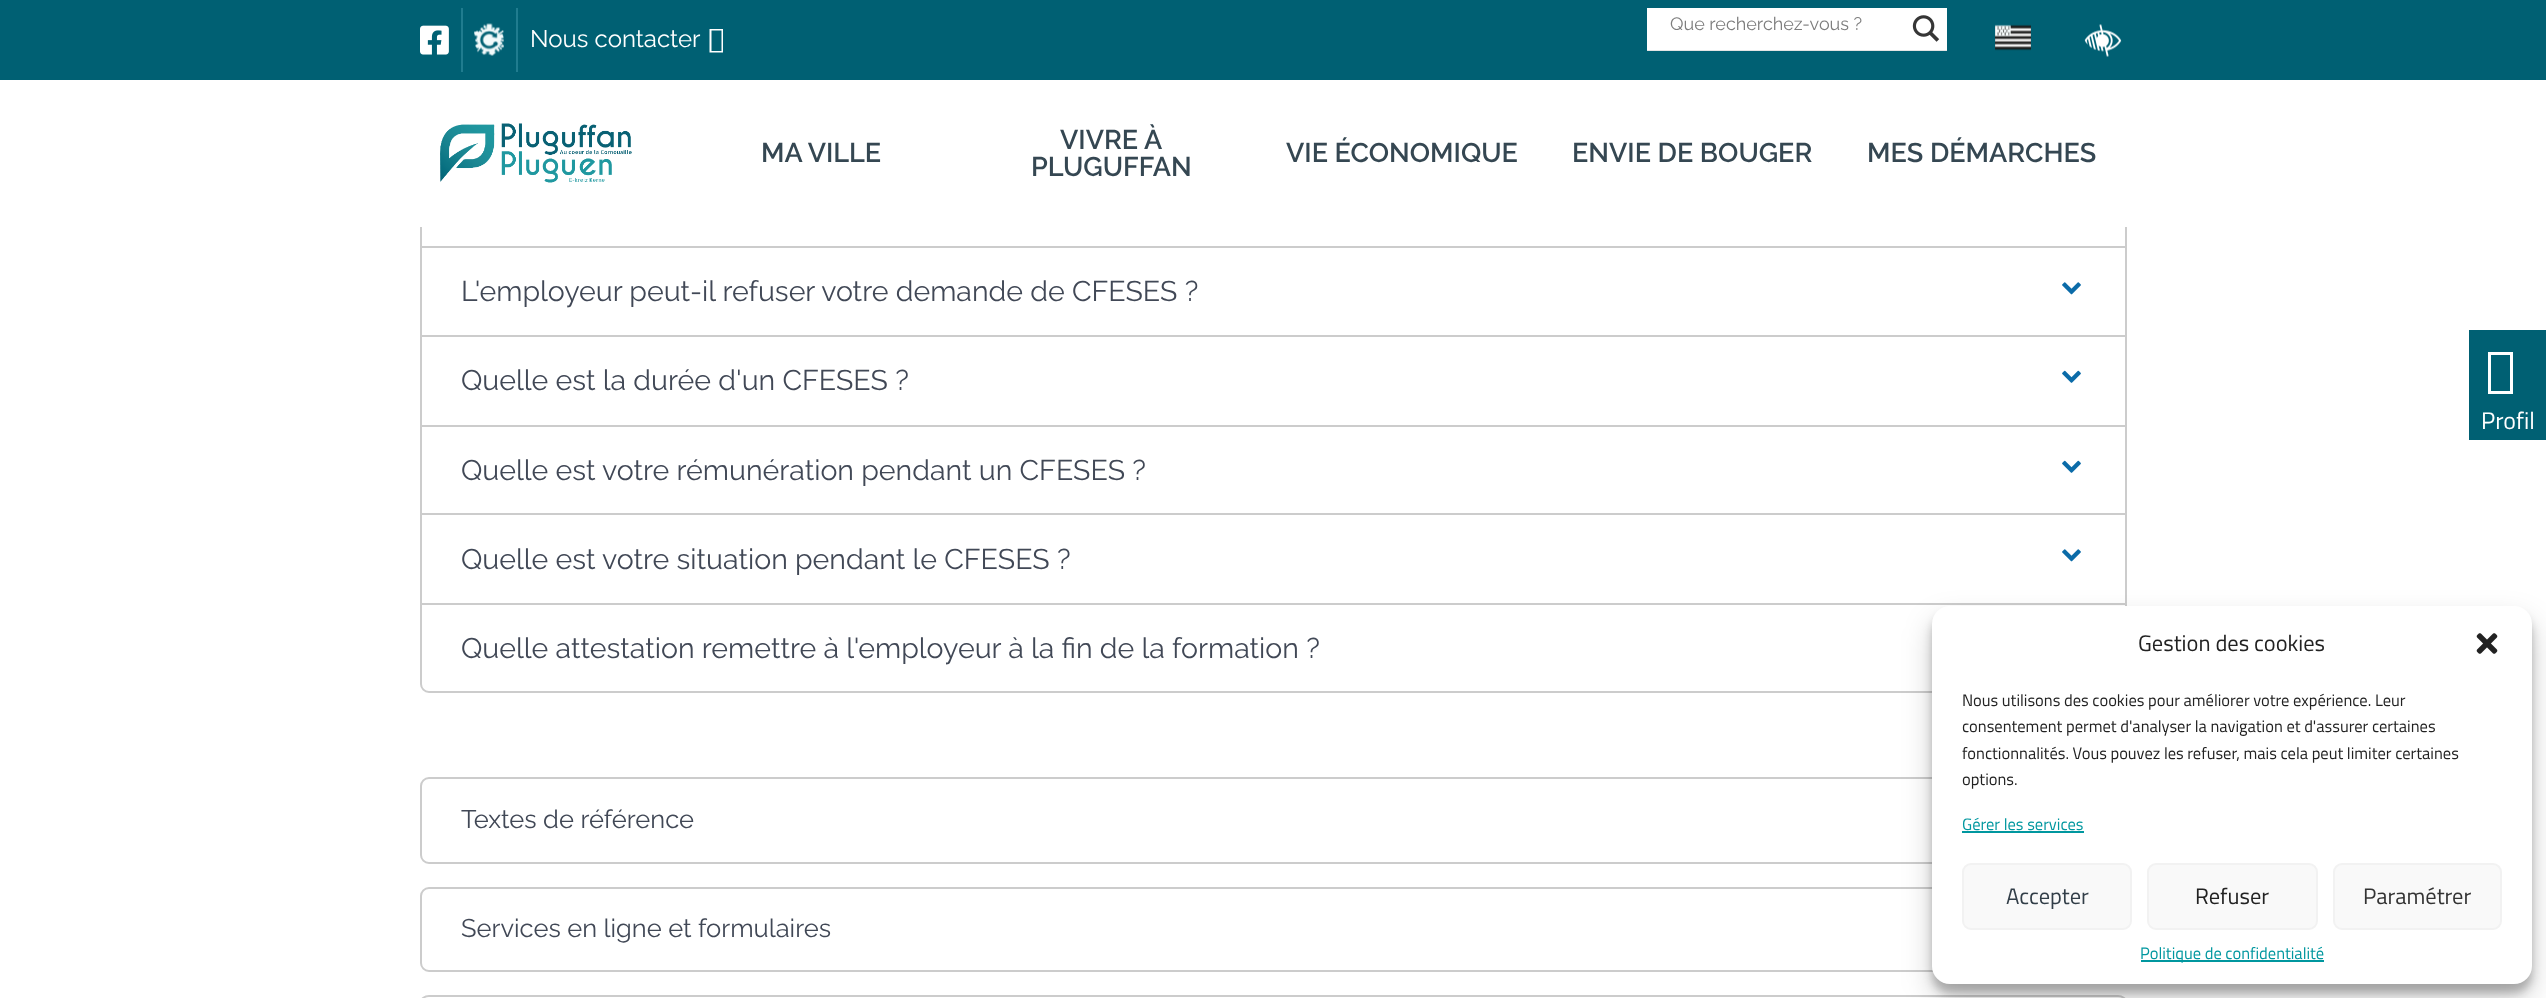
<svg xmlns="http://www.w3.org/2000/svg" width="2546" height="998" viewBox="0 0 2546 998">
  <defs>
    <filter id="blur1" x="-50%" y="-200%" width="200%" height="500%"><feGaussianBlur stdDeviation="4.5"/></filter>
    <filter id="blur2" x="-50%" y="-200%" width="200%" height="500%"><feGaussianBlur stdDeviation="15"/></filter>
  </defs>
  <rect width="100%" height="100%" fill="#ffffff"/>
  <rect x="421" y="-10" width="1705" height="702" rx="8" fill="none" stroke="#cccccc" stroke-width="2"/>
  <rect x="0" y="0" width="2546" height="80" fill="#006073"/>
  <rect x="1647" y="50" width="300" height="1" fill="#e4e4e4"/>
  <rect x="1647" y="8" width="300" height="42" fill="#ffffff"/>
  <text x="1670" y="30" font-family="Raleway" font-size="18" fill="#7d7d7d">Que recherchez-vous ?</text>
  <image x="1912" y="15" width="28" height="27" href="img1.png"/>
  <image x="1995" y="24" width="36" height="27" href="img2.png"/>
  <image x="2084" y="24" width="38" height="33" href="img3.png"/>
  <image x="420" y="25" width="29" height="30" href="img4.png"/>
  <rect x="461" y="8" width="2" height="64" fill="#207c8f"/>
  <image x="474" y="23" width="30" height="33" href="img5.png"/>
  <rect x="516" y="8" width="2" height="64" fill="#207c8f"/>
  <text x="530" y="47" font-family="Raleway" font-size="24" fill="#ffffff">Nous contacter</text>
  <path d="M709.5 52.5V29H723V52.5ZM711.5 51H721.5V30.5H711.5Z" fill="#ffffff"/>
  <rect x="420" y="80" width="1707" height="147" fill="#ffffff"/>
  <image x="440" y="123" width="192" height="60" href="img6.png"/>
  <text x="761" y="162" font-family="Raleway" font-size="27" font-weight="600" fill="#354752">MA VILLE</text>
  <text x="1060" y="149" font-family="Raleway" font-size="27" font-weight="600" fill="#354752">VIVRE À</text>
  <text x="1031" y="176" font-family="Raleway" font-size="27" font-weight="600" fill="#354752">PLUGUFFAN</text>
  <text x="1286" y="162" font-family="Raleway" font-size="27" font-weight="600" fill="#354752">VIE ÉCONOMIQUE</text>
  <text x="1572" y="162" font-family="Raleway" font-size="27" font-weight="600" fill="#354752">ENVIE DE BOUGER</text>
  <text x="1867" y="162" font-family="Raleway" font-size="27" font-weight="600" fill="#354752">MES DÉMARCHES</text>
  <rect x="422" y="246" width="1704" height="2" fill="#cccccc"/>
  <text x="461" y="301" font-family="Raleway" font-size="28.5" fill="#414856">L'employeur peut-il refuser votre demande de CFESES ?</text>
  <image x="2062" y="282" width="19" height="13" href="img7.png"/>
  <rect x="422" y="335" width="1704" height="2" fill="#cccccc"/>
  <text x="461" y="390" font-family="Raleway" font-size="28.5" fill="#414856">Quelle est la durée d'un CFESES ?</text>
  <image x="2062" y="370" width="19" height="13" href="img8.png"/>
  <rect x="422" y="425" width="1704" height="2" fill="#cccccc"/>
  <text x="461" y="480" font-family="Raleway" font-size="28.5" fill="#414856">Quelle est votre rémunération pendant un CFESES ?</text>
  <image x="2062" y="460" width="19" height="13" href="img8.png"/>
  <rect x="422" y="513" width="1704" height="2" fill="#cccccc"/>
  <text x="461" y="569" font-family="Raleway" font-size="28.5" fill="#414856">Quelle est votre situation pendant le CFESES ?</text>
  <image x="2062" y="549" width="19" height="13" href="img7.png"/>
  <rect x="422" y="603" width="1704" height="2" fill="#cccccc"/>
  <text x="461" y="658" font-family="Raleway" font-size="28.5" fill="#414856">Quelle attestation remettre à l'employeur à la fin de la formation ?</text>
  <rect x="421" y="778" width="1705" height="85" rx="8" fill="none" stroke="#cccccc" stroke-width="2"/>
  <text x="461" y="828" font-family="Raleway" font-size="25.5" fill="#414856">Textes de référence</text>
  <rect x="421" y="888" width="1705" height="83" rx="8" fill="none" stroke="#cccccc" stroke-width="2"/>
  <text x="461" y="937" font-family="Raleway" font-size="25.5" fill="#414856">Services en ligne et formulaires</text>
  <rect x="421" y="996" width="1705" height="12" rx="8" fill="none" stroke="#cccccc" stroke-width="2"/>
  <rect x="2469" y="330" width="77" height="110" fill="#006073"/>
  <path d="M2488 394V352H2513V394ZM2491 391H2510V355H2491Z" fill="#ffffff"/>
  <text x="2481" y="429" font-family="Titillium Web" font-size="24" fill="#ffffff">Profil</text>
  <rect x="1932" y="615" width="600" height="378" rx="18" fill="#000000" fill-opacity="0.23" filter="url(#blur1)"/>
  <rect x="1932" y="621" width="600" height="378" rx="18" fill="#000000" fill-opacity="0.19" filter="url(#blur2)"/>
  <rect x="1932" y="606" width="600" height="378" rx="18" fill="#ffffff"/>
  <text x="2138" y="651" font-family="Titillium Web" font-size="22.5" fill="#222222">Gestion des cookies</text>
  <image x="2476" y="633" width="22" height="21" href="img9.png"/>
  <text x="1962" y="706" font-family="Titillium Web" font-size="16.5" fill="#222222">Nous utilisons des cookies pour améliorer votre expérience. Leur</text>
  <text x="1962" y="732" font-family="Titillium Web" font-size="16.5" fill="#222222">consentement permet d'analyser la navigation et d'assurer certaines</text>
  <text x="1962" y="759" font-family="Titillium Web" font-size="16.5" fill="#222222">fonctionnalités. Vous pouvez les refuser, mais cela peut limiter certaines</text>
  <text x="1962" y="785" font-family="Titillium Web" font-size="16.5" fill="#222222">options.</text>
  <text x="1962" y="830" font-family="Titillium Web" font-size="16.5" fill="#00979f">Gérer les services</text>
  <rect x="1962" y="831" width="122" height="2" fill="#00979f"/>
  <rect x="1963" y="864" width="168" height="65" rx="8" fill="#f9f9f9" stroke="#f2f2f2" stroke-width="2"/>
  <text x="2006" y="904" font-family="Titillium Web" font-size="22.5" fill="#323e48">Accepter</text>
  <rect x="2148" y="864" width="169" height="65" rx="8" fill="#f9f9f9" stroke="#f2f2f2" stroke-width="2"/>
  <text x="2195" y="904" font-family="Titillium Web" font-size="22.5" fill="#222222">Refuser</text>
  <rect x="2334" y="864" width="167" height="65" rx="8" fill="#f9f9f9" stroke="#f2f2f2" stroke-width="2"/>
  <text x="2363" y="904" font-family="Titillium Web" font-size="22.5" fill="#333333">Paramétrer</text>
  <rect x="2141" y="960" width="183" height="2" fill="#00979f"/>
  <text x="2140" y="959" font-family="Titillium Web" font-size="16.5" fill="#00979f">Politique de confidentialité</text>
</svg>
